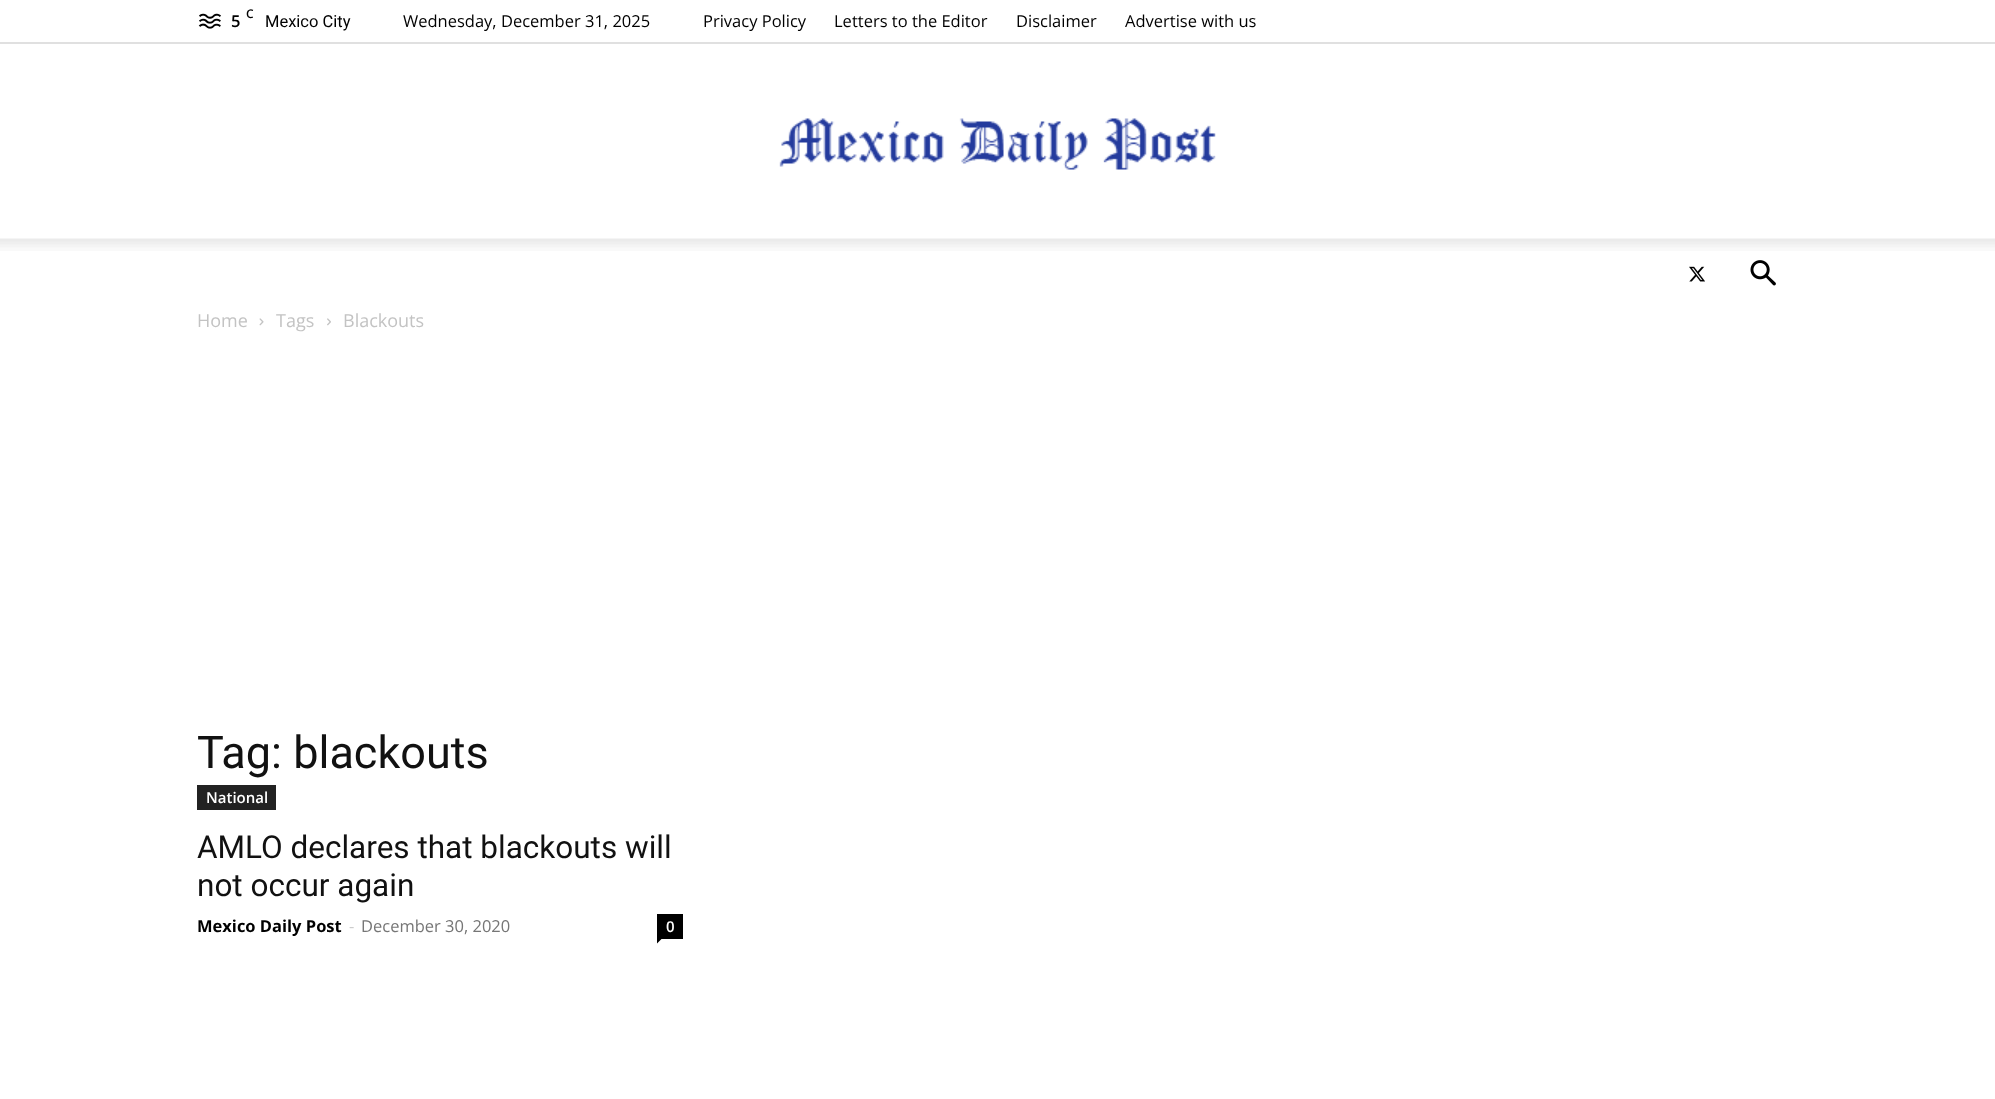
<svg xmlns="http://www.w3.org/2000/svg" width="1995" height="1099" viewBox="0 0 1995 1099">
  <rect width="100%" height="100%" fill="#ffffff"/>
  <rect x="0" y="42" width="1995" height="2" fill="#e0e0e0"/>
  <image x="198" y="13" width="23" height="16" href="img1.png"/>
  <text x="246" y="18" font-family="Open Sans" font-size="12" font-weight="600" fill="#000000">C</text>
  <text x="231" y="27" font-family="Open Sans" font-size="16.5" font-weight="600" fill="#000000">5</text>
  <text x="265" y="27" font-family="Roboto" font-size="16.5" fill="#000000">Mexico City</text>
  <text x="403" y="27" font-family="Open Sans" font-size="16.5" fill="#000000">Wednesday, December 31, 2025</text>
  <text x="703" y="27" font-family="Open Sans" font-size="16.5" fill="#000000">Privacy Policy</text>
  <text x="834" y="27" font-family="Open Sans" font-size="16.5" fill="#000000">Letters to the Editor</text>
  <text x="1016" y="27" font-family="Open Sans" font-size="16.5" fill="#000000">Disclaimer</text>
  <text x="1125" y="27" font-family="Open Sans" font-size="16.5" fill="#000000">Advertise with us</text>
  <image x="779" y="118" width="437" height="52" href="img2.png"/>
  <image x="0" y="238" width="1995" height="13" href="img3.png"/>
  <image x="1689" y="266" width="16" height="16" href="img4.png"/>
  <image x="1750" y="260" width="26" height="26" href="img5.png"/>
  <text x="197" y="327" font-family="Open Sans" font-size="18" fill="#c3c3c3">Home</text>
  <image x="259" y="318" width="5" height="8" href="img6.png"/>
  <text x="276" y="327" font-family="Open Sans" font-size="18" fill="#c3c3c3">Tags</text>
  <image x="327" y="318" width="4" height="8" href="img7.png"/>
  <text x="343" y="327" font-family="Open Sans" font-size="18" fill="#c3c3c3">Blackouts</text>
  <text x="197" y="768" font-family="Roboto" font-size="45" fill="#111111">Tag: blackouts</text>
  <rect x="197" y="785" width="79" height="25" fill="#222222"/>
  <text x="206" y="803" font-family="Open Sans" font-size="15" font-weight="600" fill="#ffffff">National</text>
  <text x="197" y="858" font-family="Roboto" font-size="31.5" fill="#111111">AMLO declares that blackouts will</text>
  <text x="197" y="896" font-family="Roboto" font-size="31.5" fill="#111111">not occur again</text>
  <text x="197" y="932" font-family="Open Sans" font-size="16.5" font-weight="bold" fill="#000000">Mexico Daily Post</text>
  <text x="349" y="932" font-family="Open Sans" font-size="16.5" fill="#cccccc">-</text>
  <text x="361" y="932" font-family="Open Sans" font-size="16.5" fill="#767676">December 30, 2020</text>
  <rect x="657" y="914" width="26" height="25" fill="#000000"/>
  <text x="666" y="932" font-family="Open Sans" font-size="15" font-weight="600" fill="#ffffff">0</text>
  <path d="M657 939H661.5L657 943.5Z" fill="#000000"/>
</svg>
